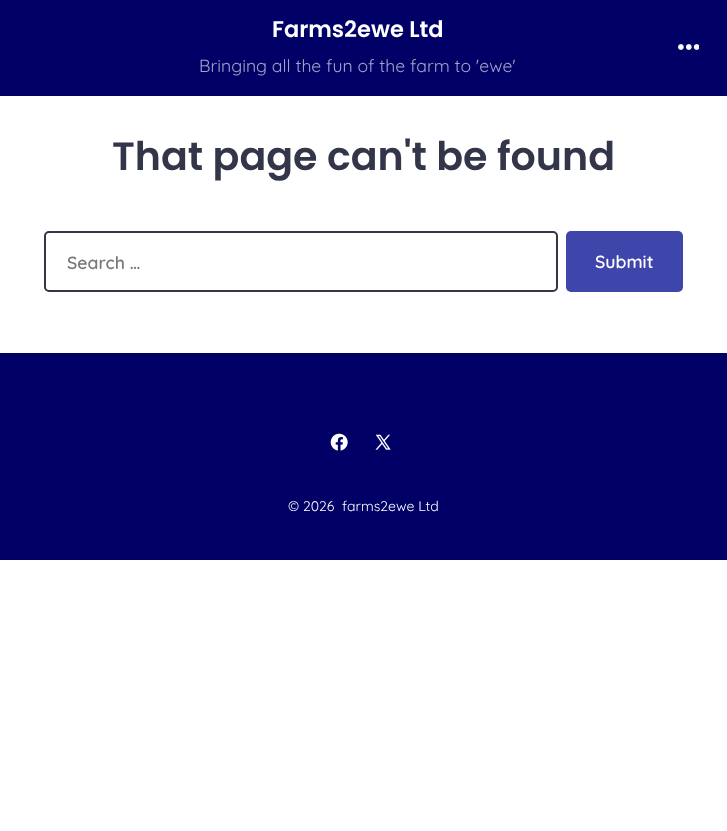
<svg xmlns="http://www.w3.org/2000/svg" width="727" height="831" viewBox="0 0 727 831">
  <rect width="100%" height="100%" fill="#ffffff"/>
  <rect x="0" y="0" width="727" height="96" fill="#000066"/>
  <text x="272" y="37" font-family="Poppins" font-size="22.5" font-weight="600" fill="#ffffff">Farms2ewe Ltd</text>
  <text x="199" y="72" font-family="Quicksand" font-size="17.6" fill="#a3a3c6">Bringing all the fun of the farm to 'ewe'</text>
  <image x="678" y="44" width="21" height="6" href="img1.png"/>
  <text x="112" y="170" font-family="Poppins" font-size="39.6" font-weight="600" fill="#323648">That page can't be found</text>
  <rect x="45" y="232" width="512" height="59" rx="4" fill="none" stroke="#323648" stroke-width="2"/>
  <text x="67" y="269" font-family="Quicksand" font-size="17.6" font-weight="600" fill="#787878">Search …</text>
  <rect x="566" y="231" width="117" height="61" rx="5" fill="#3e46ac"/>
  <text x="595" y="268" font-family="Quicksand" font-size="17.6" font-weight="600" fill="#ffffff">Submit</text>
  <rect x="0" y="353" width="727" height="207" fill="#000066"/>
  <image x="330" y="433" width="18" height="18" href="img2.png"/>
  <image x="375" y="434" width="16" height="16" href="img3.png"/>
  <text x="288" y="511" font-family="Quicksand" font-size="14" fill="#ffffff">© 2026</text>
  <text x="342" y="511" font-family="Quicksand" font-size="14" fill="#ffffff">farms2ewe Ltd</text>
</svg>
